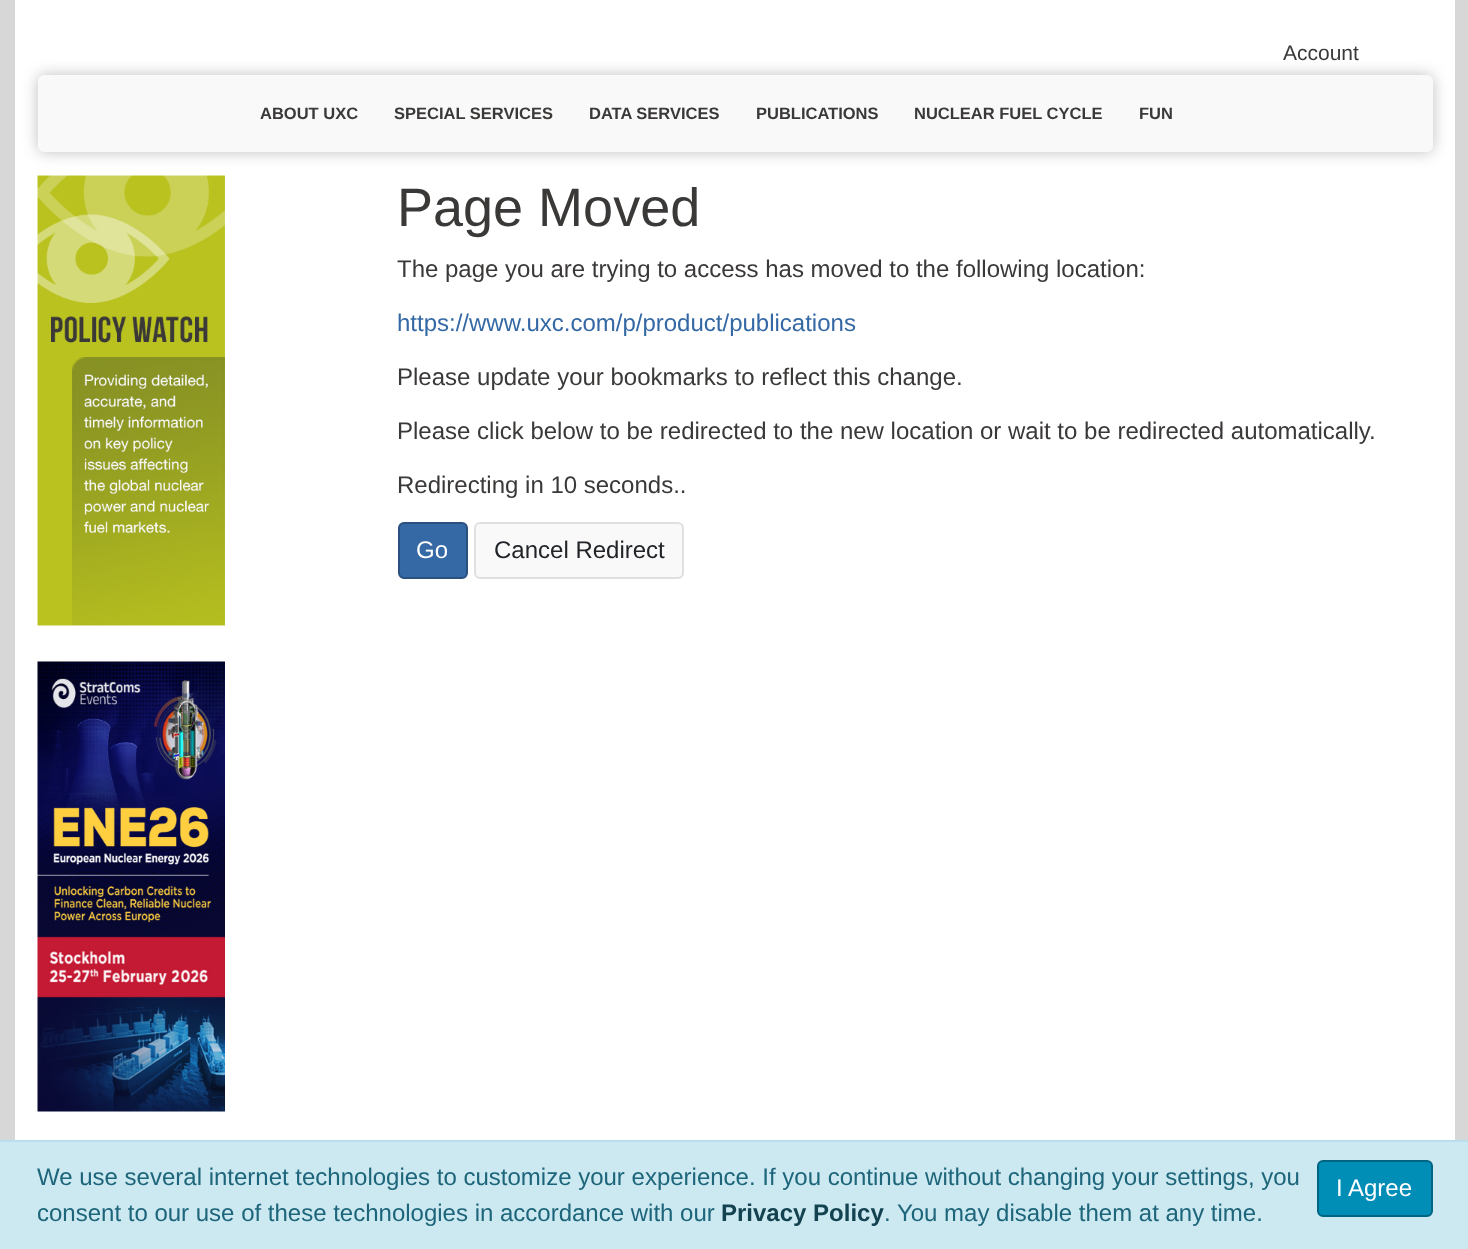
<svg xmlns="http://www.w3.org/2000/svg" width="1468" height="1249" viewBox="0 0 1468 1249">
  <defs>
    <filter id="blur1" x="-50%" y="-200%" width="200%" height="500%"><feGaussianBlur stdDeviation="7.5"/></filter>
  </defs>
  <rect width="100%" height="100%" fill="#d7d7d7"/>
  <rect x="15" y="0" width="1440" height="1140" fill="#ffffff"/>
  <image x="37" y="175" width="188" height="451" href="img1.png"/>
  <rect x="38" y="75" width="1395" height="77" rx="6" fill="#000000" fill-opacity="0.25" filter="url(#blur1)"/>
  <text x="1283" y="60" font-family="Liberation Sans" font-size="21" fill="#3b3938">Account</text>
  <rect x="38" y="75" width="1395" height="77" rx="6" fill="#f9f9f9"/>
  <text x="260" y="119" font-family="Liberation Sans" font-size="16.5" font-weight="bold" fill="#3b3938">ABOUT UXC</text>
  <text x="394" y="119" font-family="Liberation Sans" font-size="16.5" font-weight="bold" fill="#3b3938">SPECIAL SERVICES</text>
  <text x="589" y="119" font-family="Liberation Sans" font-size="16.5" font-weight="bold" fill="#3b3938">DATA SERVICES</text>
  <text x="756" y="119" font-family="Liberation Sans" font-size="16.5" font-weight="bold" fill="#3b3938">PUBLICATIONS</text>
  <text x="914" y="119" font-family="Liberation Sans" font-size="16.5" font-weight="bold" fill="#3b3938">NUCLEAR FUEL CYCLE</text>
  <text x="1139" y="119" font-family="Liberation Sans" font-size="16.5" font-weight="bold" fill="#3b3938">FUN</text>
  <image x="37" y="661" width="188" height="451" href="img2.png"/>
  <text x="397" y="226" font-family="Liberation Sans" font-size="54" fill="#3b3938">Page Moved</text>
  <text x="397" y="277" font-family="Liberation Sans" font-size="24" fill="#3b3938">The page you are trying to access has moved to the following location:</text>
  <text x="397" y="331" font-family="Liberation Sans" font-size="24" fill="#3569a5">https://www.uxc.com/p/product/publications</text>
  <text x="397" y="385" font-family="Liberation Sans" font-size="24" fill="#3b3938">Please update your bookmarks to reflect this change.</text>
  <text x="397" y="439" font-family="Liberation Sans" font-size="24" fill="#3b3938">Please click below to be redirected to the new location or wait to be redirected automatically.</text>
  <text x="397" y="493" font-family="Liberation Sans" font-size="24" fill="#3b3938">Redirecting in 10 seconds..</text>
  <rect x="399" y="523" width="68" height="55" rx="5" fill="#3569a5" stroke="#29507e" stroke-width="2"/>
  <text x="416" y="558" font-family="Liberation Sans" font-size="24" fill="#ffffff">Go</text>
  <rect x="475" y="523" width="208" height="55" rx="5" fill="#f9f9f9" stroke="#e0e0e0" stroke-width="2"/>
  <text x="494" y="558" font-family="Liberation Sans" font-size="24" fill="#212529">Cancel Redirect</text>
  <rect x="0" y="1142" width="1468" height="107" fill="#cce8f0"/>
  <rect x="0" y="1140" width="1468" height="2" fill="#b8dfeb"/>
  <text x="37" y="1185" font-family="Liberation Sans" font-size="24" fill="#1c657a">We use several internet technologies to customize your experience. If you continue without changing your settings, you</text>
  <rect x="1318" y="1161" width="114" height="55" rx="5" fill="#008db6" stroke="#006583" stroke-width="2"/>
  <text x="1336" y="1196" font-family="Liberation Sans" font-size="24" fill="#ffffff">I Agree</text>
  <text x="37" y="1221" font-family="Liberation Sans" font-size="24" fill="#1c657a">consent to our use of these technologies in accordance with our</text>
  <text x="721" y="1221" font-family="Liberation Sans" font-size="24" font-weight="bold" fill="#134250">Privacy Policy</text>
  <text x="884" y="1221" font-family="Liberation Sans" font-size="24" fill="#1c657a">. You may disable them at any time.</text>
</svg>
